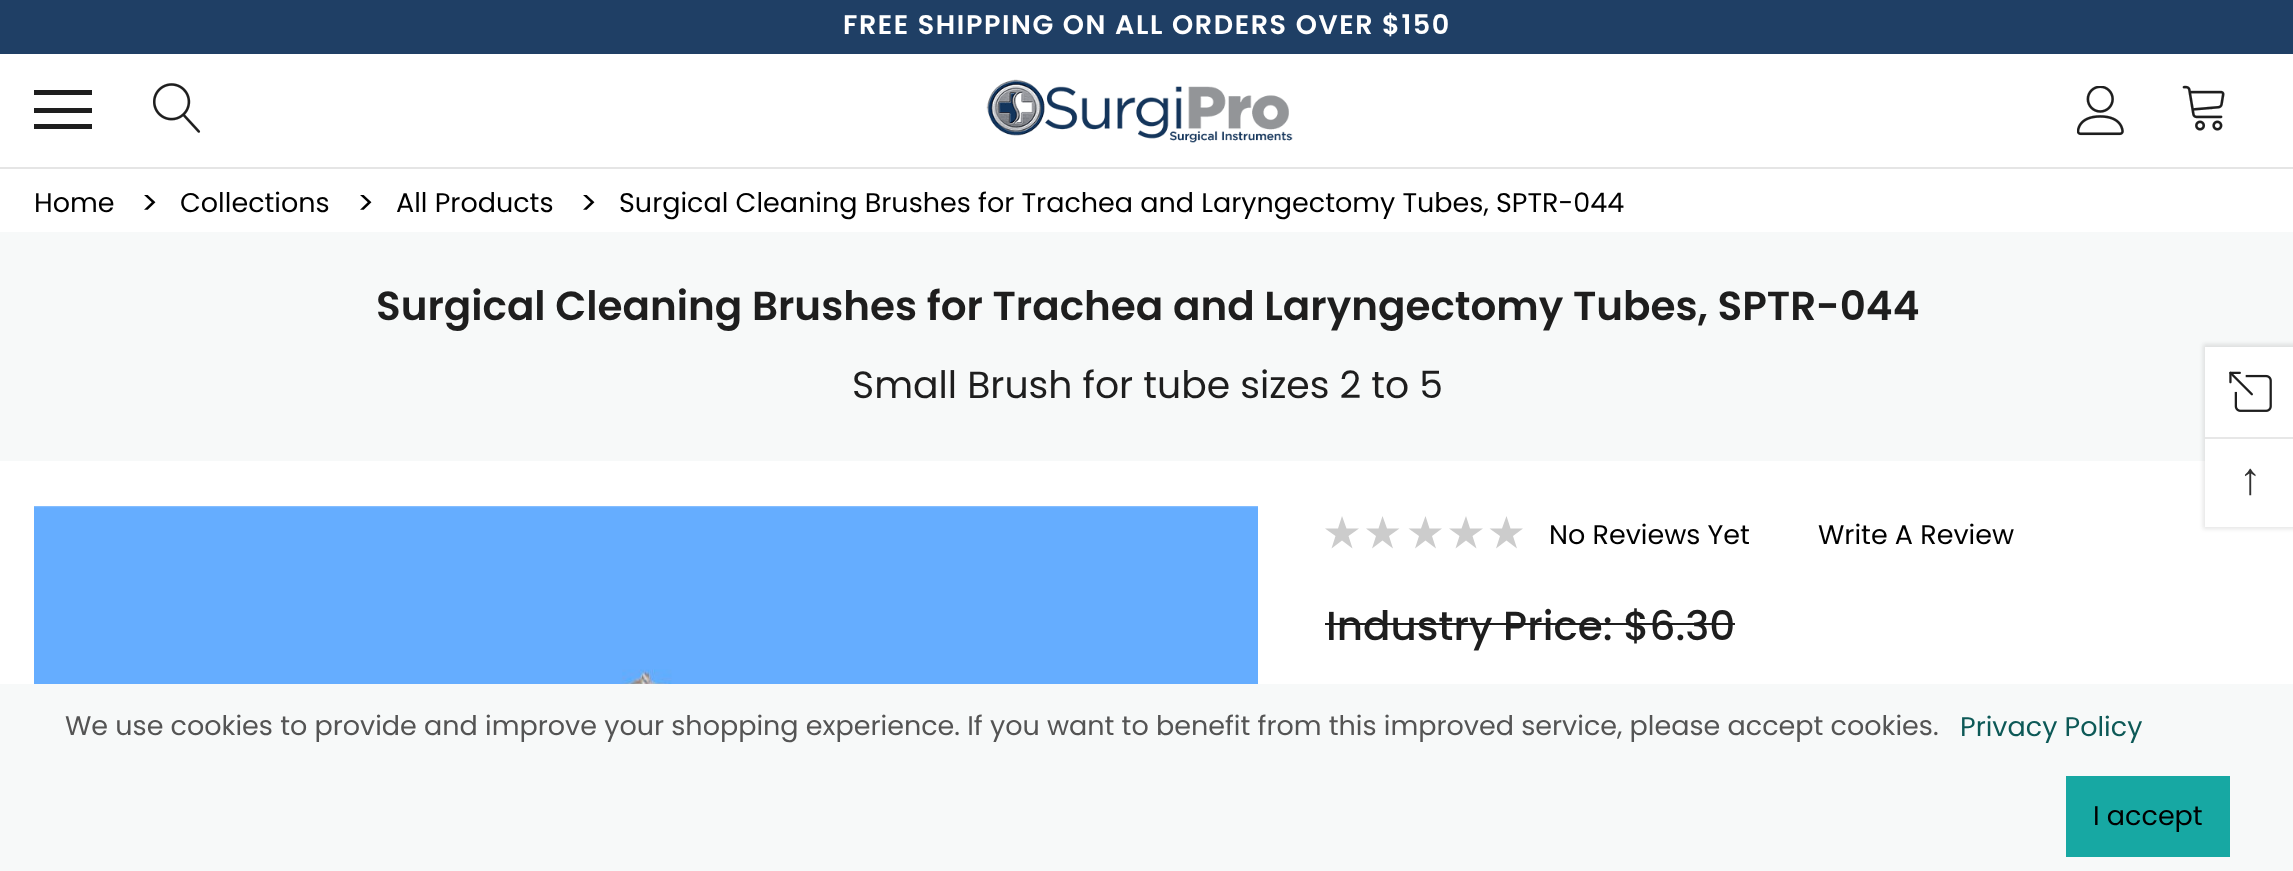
<svg xmlns="http://www.w3.org/2000/svg" width="2293" height="871" viewBox="0 0 2293 871">
  <defs>
    <filter id="blur1" x="-50%" y="-200%" width="200%" height="500%"><feGaussianBlur stdDeviation="2"/></filter>
  </defs>
  <rect width="100%" height="100%" fill="#ffffff"/>
  <rect x="0" y="167" width="2293" height="2" fill="#e5e5e5"/>
  <rect x="0" y="0" width="2293" height="54" fill="#1f3f65"/>
  <text x="843" y="34" font-family="Poppins" font-size="27" font-weight="600" letter-spacing="1.6" fill="#ffffff">FREE SHIPPING ON ALL ORDERS OVER $150</text>
  <rect x="34" y="108" width="58" height="5" fill="#1e1e1e"/>
  <rect x="34" y="90" width="58" height="5" fill="#1e1e1e"/>
  <rect x="34" y="124" width="58" height="5" fill="#1e1e1e"/>
  <image x="153" y="83" width="48" height="50" href="img1.png"/>
  <image x="986" y="79" width="307" height="64" href="img2.png"/>
  <image x="2077" y="86" width="47" height="50" href="img3.png"/>
  <image x="2182" y="85" width="43" height="46" href="img4.png"/>
  <text x="34" y="212" font-family="Poppins" font-size="27" fill="#000000">Home</text>
  <text x="141" y="214" font-family="Poppins" font-size="32" fill="#000000">&gt;</text>
  <text x="180" y="212" font-family="Poppins" font-size="27" fill="#000000">Collections</text>
  <text x="357" y="214" font-family="Poppins" font-size="32" fill="#000000">&gt;</text>
  <text x="396" y="212" font-family="Poppins" font-size="27" fill="#000000">All Products</text>
  <text x="580" y="214" font-family="Poppins" font-size="32" fill="#000000">&gt;</text>
  <text x="619" y="212" font-family="Poppins" font-size="27" fill="#000000">Surgical Cleaning Brushes for Trachea and Laryngectomy Tubes, SPTR-044</text>
  <rect x="0" y="232" width="2293" height="229" fill="#f7f9f9"/>
  <text x="376" y="320" font-family="Poppins" font-size="40.5" font-weight="600" fill="#1e1e1e">Surgical Cleaning Brushes for Trachea and Laryngectomy Tubes, SPTR-044</text>
  <text x="852" y="398" font-family="Poppins" font-size="37.75" fill="#1e1e1e">Small Brush for tube sizes 2 to 5</text>
  <image x="34" y="506" width="1224" height="178" href="img5.png"/>
  <path d="M1342 540.5L1352.5 548.5L1348.5 536L1359 528.5H1346.5L1342 516L1338 528.5H1325L1335.5 536L1331.5 548.5Z" fill="#cccccc"/>
  <path d="M1382.5 540.5L1393 548.5L1389 536L1399.5 528.5H1387L1382.5 516L1378.5 528.5H1366L1376 536L1372 548.5Z" fill="#cccccc"/>
  <path d="M1425.5 540.5L1436 548.5L1432 536L1442 528.5H1429.5L1425.5 516L1421 528.5H1408.5L1419 536L1415 548.5Z" fill="#cccccc"/>
  <path d="M1466 540.5L1476.5 548.5L1472.5 536L1483 528.5H1470L1466 516L1461.5 528.5H1449L1459.5 536L1455.5 548.5Z" fill="#cccccc"/>
  <path d="M1506.5 540.5L1517 548.5L1513 536L1523 528.5H1510.5L1506.5 516L1502 528.5H1489.5L1500 536L1496 548.5Z" fill="#cccccc"/>
  <text x="1549" y="544" font-family="Poppins" font-size="27" fill="#000000">No Reviews Yet</text>
  <text x="1818" y="544" font-family="Poppins" font-size="27" fill="#000000">Write A Review</text>
  <text x="1326" y="640" font-family="Poppins" font-size="40.5" font-weight="500" fill="#1e1e1e">Industry Price: $6.30</text>
  <rect x="1325" y="623" width="410" height="2" fill="#1e1e1e"/>
  <rect x="2203" y="344" width="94" height="185" fill="#000000" fill-opacity="0.1" filter="url(#blur1)"/>
  <rect x="2205" y="347" width="88" height="180" fill="#ffffff"/>
  <image x="2229" y="371" width="43" height="41" href="img6.png"/>
  <rect x="2205" y="437" width="88" height="2" fill="#e7e7e7"/>
  <text x="2239" y="494" font-family="Liberation Sans" font-size="45" fill="#323232">↑</text>
  <rect x="0" y="684" width="2293" height="187" fill="#f7f9f9"/>
  <text x="65" y="735" font-family="Poppins" font-size="27" fill="#545454">We use cookies to provide and improve your shopping experience. If you want to benefit from this improved service, please accept cookies.</text>
  <text x="1960" y="736" font-family="Poppins" font-size="27" fill="#0d5957">Privacy Policy</text>
  <rect x="2066" y="776" width="164" height="81" fill="#17a8a3"/>
  <text x="2093" y="825" font-family="Poppins" font-size="27" fill="#000000">I accept</text>
</svg>
